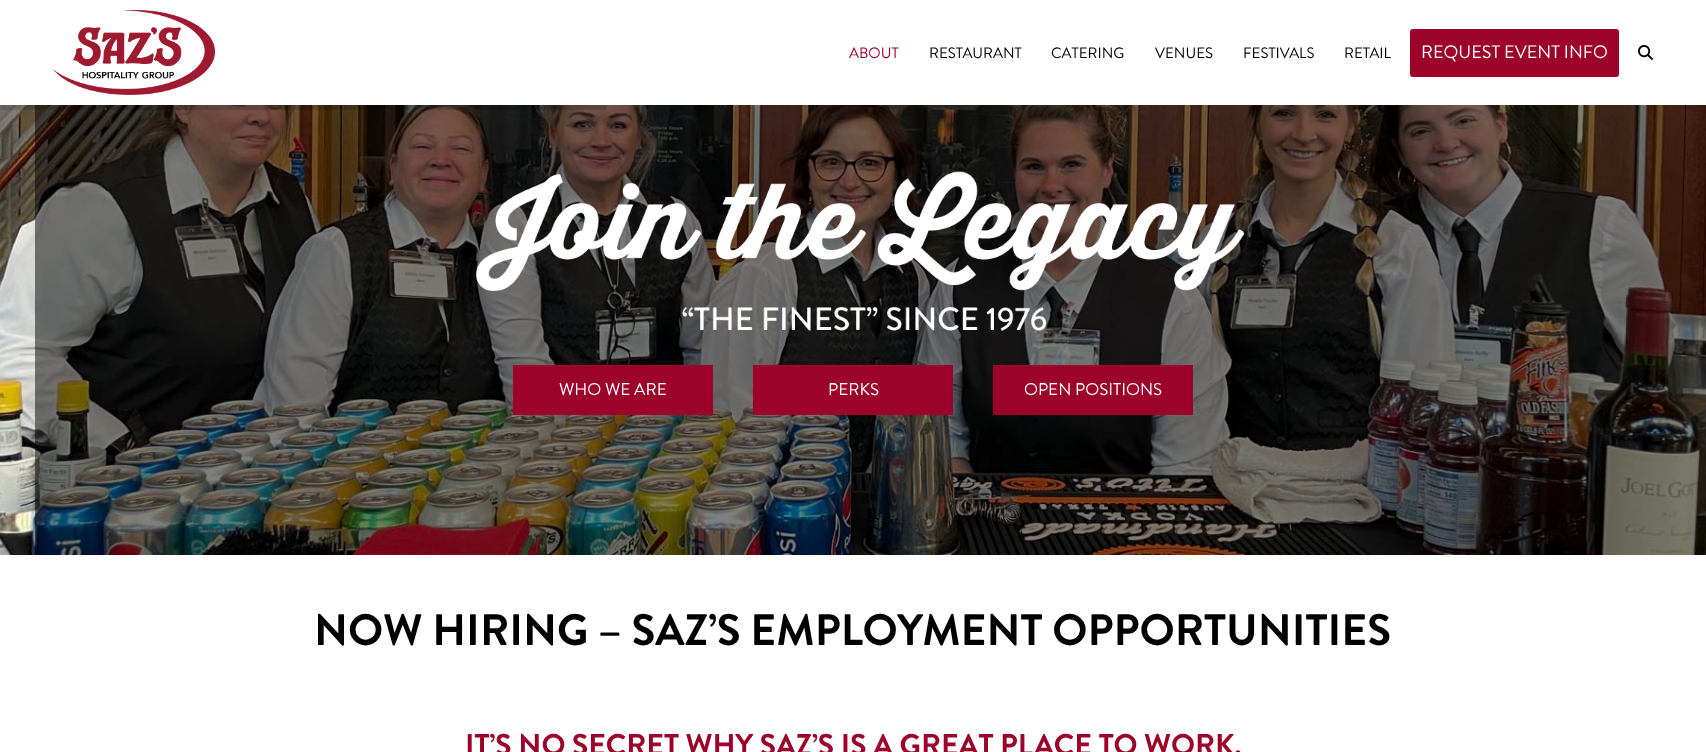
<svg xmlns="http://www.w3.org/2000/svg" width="1706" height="752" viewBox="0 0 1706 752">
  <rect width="100%" height="100%" fill="#ffffff"/>
  <image x="53" y="10" width="162" height="85" href="img1.png"/>
  <text x="849" y="58" font-family="Brandon Grotesque" font-size="15" fill="#9d032a">ABOUT</text>
  <text x="929" y="58" font-family="Brandon Grotesque" font-size="15" fill="#000000">RESTAURANT</text>
  <text x="1051" y="58" font-family="Brandon Grotesque" font-size="15" fill="#000000">CATERING</text>
  <text x="1155" y="58" font-family="Brandon Grotesque" font-size="15" fill="#000000">VENUES</text>
  <text x="1243" y="58" font-family="Brandon Grotesque" font-size="15" fill="#000000">FESTIVALS</text>
  <text x="1344" y="58" font-family="Brandon Grotesque" font-size="15" fill="#000000">RETAIL</text>
  <rect x="1410" y="29" width="209" height="48" rx="3" fill="#9d032a"/>
  <text x="1421" y="58" font-family="Brandon Grotesque" font-size="18" fill="#ffffff">REQUEST EVENT INFO</text>
  <image x="1638" y="45" width="15" height="15" href="img2.png"/>
  <image x="0" y="105" width="1706" height="450" href="img3.png"/>
  <rect x="0" y="105" width="606" height="5" fill="#000000" fill-opacity="0.15"/>
  <image x="475" y="171" width="770" height="160" href="img4.png"/>
  <rect x="513" y="365" width="200" height="50" fill="#9d032a"/>
  <text x="559" y="395" font-family="Brandon Grotesque" font-size="17" fill="#ffffff">WHO WE ARE</text>
  <rect x="753" y="365" width="200" height="50" fill="#9d032a"/>
  <text x="828" y="395" font-family="Brandon Grotesque" font-size="17" fill="#ffffff">PERKS</text>
  <rect x="993" y="365" width="200" height="50" fill="#9d032a"/>
  <text x="1024" y="395" font-family="Brandon Grotesque" font-size="17" fill="#ffffff">OPEN POSITIONS</text>
  <text x="314" y="645" font-family="Brandon Grotesque" font-size="44" font-weight="bold" fill="#000000">NOW HIRING – SAZ’S EMPLOYMENT OPPORTUNITIES</text>
  <text x="465" y="755" font-family="Brandon Grotesque" font-size="30" font-weight="bold" fill="#9d032a">IT’S NO SECRET WHY SAZ’S IS A GREAT PLACE TO WORK.</text>
</svg>
